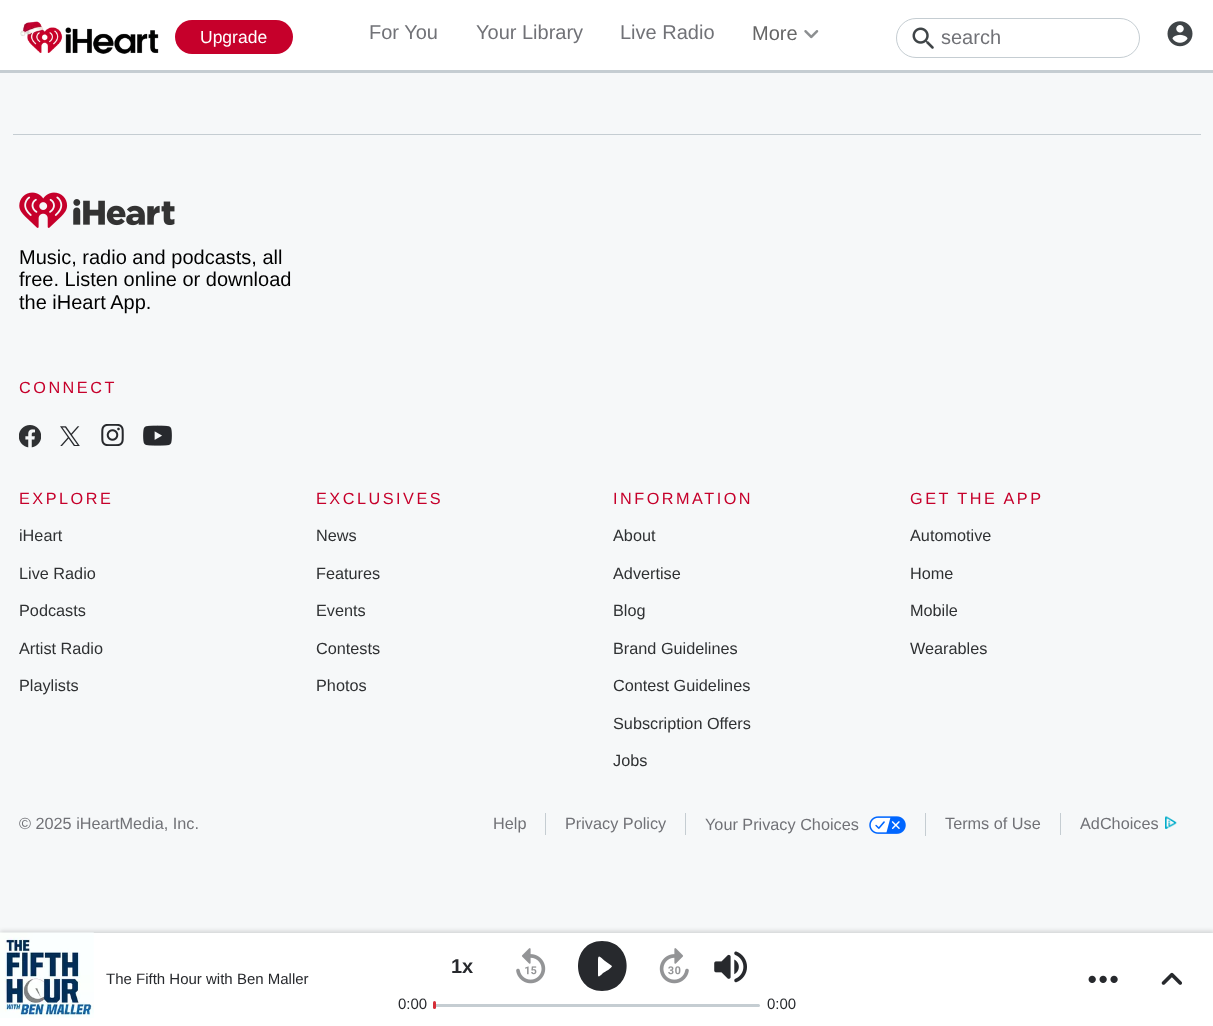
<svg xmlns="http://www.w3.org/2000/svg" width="1213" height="1026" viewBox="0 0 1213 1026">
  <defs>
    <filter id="blur1" x="-50%" y="-200%" width="200%" height="500%"><feGaussianBlur stdDeviation="2"/></filter>
  </defs>
  <rect width="100%" height="100%" fill="#f6f8f9"/>
  <rect x="0" y="0" width="1213" height="70" fill="#ffffff"/>
  <rect x="0" y="70" width="1213" height="3" fill="#c5cdd2"/>
  <image x="20" y="21" width="139" height="33" href="img1.png"/>
  <rect x="175" y="20" width="118" height="34" rx="17" fill="#c6002b"/>
  <text x="200" y="43" font-family="Liberation Sans" font-size="17.5" fill="#ffffff">Upgrade</text>
  <text x="369" y="39" font-family="Liberation Sans" font-size="20" fill="#717277">For You</text>
  <text x="476" y="39" font-family="Liberation Sans" font-size="20" fill="#717277">Your Library</text>
  <text x="620" y="39" font-family="Liberation Sans" font-size="20" fill="#717277">Live Radio</text>
  <text x="752" y="40" font-family="Liberation Sans" font-size="20" fill="#666666">More</text>
  <image x="804" y="30" width="15" height="9" href="img2.png"/>
  <rect x="896.5" y="18.5" width="243" height="39" rx="19.5" fill="none" stroke="#c5cdd2"/>
  <image x="912" y="27" width="22" height="22" href="img3.png"/>
  <text x="941" y="44" font-family="Liberation Sans" font-size="20" fill="#717277">search</text>
  <image x="1167" y="21" width="26" height="26" href="img4.png"/>
  <rect x="13" y="134" width="1188" height="1" fill="#c5cdd2"/>
  <image x="19" y="192" width="156" height="36" href="img5.png"/>
  <text x="19" y="264" font-family="Liberation Sans" font-size="20" fill="#000000">Music, radio and podcasts, all</text>
  <text x="19" y="286" font-family="Liberation Sans" font-size="20" fill="#000000">free. Listen online or download</text>
  <text x="19" y="309" font-family="Liberation Sans" font-size="20" fill="#000000">the iHeart App.</text>
  <text x="19" y="393" font-family="Liberation Sans" font-size="16.25" letter-spacing="2.5" fill="#c6002b">CONNECT</text>
  <image x="19" y="425" width="22" height="23" href="img6.png"/>
  <image x="60" y="426" width="20" height="20" href="img7.png"/>
  <image x="101" y="424" width="23" height="22" href="img8.png"/>
  <image x="143" y="425" width="29" height="21" href="img9.png"/>
  <text x="19" y="504" font-family="Liberation Sans" font-size="16.25" letter-spacing="2.5" fill="#c6002b">EXPLORE</text>
  <text x="19" y="541" font-family="Liberation Sans" font-size="16.25" fill="#2f3133">iHeart</text>
  <text x="19" y="579" font-family="Liberation Sans" font-size="16.25" fill="#2f3133">Live Radio</text>
  <text x="19" y="616" font-family="Liberation Sans" font-size="16.25" fill="#2f3133">Podcasts</text>
  <text x="19" y="654" font-family="Liberation Sans" font-size="16.25" fill="#2f3133">Artist Radio</text>
  <text x="19" y="691" font-family="Liberation Sans" font-size="16.25" fill="#2f3133">Playlists</text>
  <text x="316" y="504" font-family="Liberation Sans" font-size="16.25" letter-spacing="2.5" fill="#c6002b">EXCLUSIVES</text>
  <text x="316" y="541" font-family="Liberation Sans" font-size="16.25" fill="#2f3133">News</text>
  <text x="316" y="579" font-family="Liberation Sans" font-size="16.25" fill="#2f3133">Features</text>
  <text x="316" y="616" font-family="Liberation Sans" font-size="16.25" fill="#2f3133">Events</text>
  <text x="316" y="654" font-family="Liberation Sans" font-size="16.25" fill="#2f3133">Contests</text>
  <text x="316" y="691" font-family="Liberation Sans" font-size="16.25" fill="#2f3133">Photos</text>
  <text x="613" y="504" font-family="Liberation Sans" font-size="16.25" letter-spacing="2.5" fill="#c6002b">INFORMATION</text>
  <text x="613" y="541" font-family="Liberation Sans" font-size="16.25" fill="#2f3133">About</text>
  <text x="613" y="579" font-family="Liberation Sans" font-size="16.25" fill="#2f3133">Advertise</text>
  <text x="613" y="616" font-family="Liberation Sans" font-size="16.25" fill="#2f3133">Blog</text>
  <text x="613" y="654" font-family="Liberation Sans" font-size="16.25" fill="#2f3133">Brand Guidelines</text>
  <text x="613" y="691" font-family="Liberation Sans" font-size="16.25" fill="#2f3133">Contest Guidelines</text>
  <text x="613" y="729" font-family="Liberation Sans" font-size="16.25" fill="#2f3133">Subscription Offers</text>
  <text x="613" y="766" font-family="Liberation Sans" font-size="16.25" fill="#2f3133">Jobs</text>
  <text x="910" y="504" font-family="Liberation Sans" font-size="16.25" letter-spacing="2.5" fill="#c6002b">GET THE APP</text>
  <text x="910" y="541" font-family="Liberation Sans" font-size="16.25" fill="#2f3133">Automotive</text>
  <text x="910" y="579" font-family="Liberation Sans" font-size="16.25" fill="#2f3133">Home</text>
  <text x="910" y="616" font-family="Liberation Sans" font-size="16.25" fill="#2f3133">Mobile</text>
  <text x="910" y="654" font-family="Liberation Sans" font-size="16.25" fill="#2f3133">Wearables</text>
  <text x="19" y="829" font-family="Liberation Sans" font-size="16.25" fill="#717277">© 2025 iHeartMedia, Inc.</text>
  <rect x="545" y="813" width="1" height="22" fill="#c5cdd2"/>
  <text x="493" y="829" font-family="Liberation Sans" font-size="16.25" fill="#717277">Help</text>
  <rect x="685" y="813" width="1" height="22" fill="#c5cdd2"/>
  <text x="565" y="829" font-family="Liberation Sans" font-size="16.25" fill="#717277">Privacy Policy</text>
  <rect x="925" y="813" width="1" height="23" fill="#c5cdd2"/>
  <text x="705" y="830" font-family="Liberation Sans" font-size="16.25" fill="#717277">Your Privacy Choices</text>
  <image x="869" y="816" width="37" height="18" href="img10.png"/>
  <rect x="1060" y="813" width="1" height="22" fill="#c5cdd2"/>
  <text x="945" y="829" font-family="Liberation Sans" font-size="16.25" fill="#717277">Terms of Use</text>
  <text x="1080" y="829" font-family="Liberation Sans" font-size="16.25" fill="#717277">AdChoices</text>
  <image x="1165" y="816" width="12" height="13" href="img11.png"/>
  <rect x="0" y="931" width="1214" height="94" fill="#000000" fill-opacity="0.15" filter="url(#blur1)"/>
  <rect x="0" y="933" width="1213" height="93" fill="#ffffff"/>
  <image x="0" y="932" width="94" height="86" href="img12.png"/>
  <text x="106" y="984" font-family="Liberation Sans" font-size="15" fill="#27292d">The Fifth Hour with Ben Maller</text>
  <text x="451" y="973" font-family="Liberation Sans" font-size="20" font-weight="bold" fill="#27292d">1x</text>
  <image x="516" y="948" width="30" height="36" href="img13.png"/>
  <path d="M602 941C570 941 570 991 602 991C635 991 635 941 602 941ZM598 975V960C598 953 601 958 605 961L612 966C612 968 605 972 603 973C603 973 598 979 598 975Z" fill="#27292d"/>
  <image x="659" y="948" width="30" height="36" href="img14.png"/>
  <image x="714" y="951" width="33" height="32" href="img15.png"/>
  <text x="398" y="1009" font-family="Liberation Sans" font-size="15" fill="#27292d">0:00</text>
  <rect x="434" y="1004" width="326" height="3" rx="1.5" fill="#c5cdd2"/>
  <rect x="433" y="1001" width="3" height="8" rx="1.5" fill="#d52d37"/>
  <text x="767" y="1009" font-family="Liberation Sans" font-size="15" fill="#27292d">0:00</text>
  <image x="1088" y="975" width="30" height="8" href="img16.png"/>
  <image x="1161" y="972" width="21" height="13" href="img17.png"/>
</svg>
